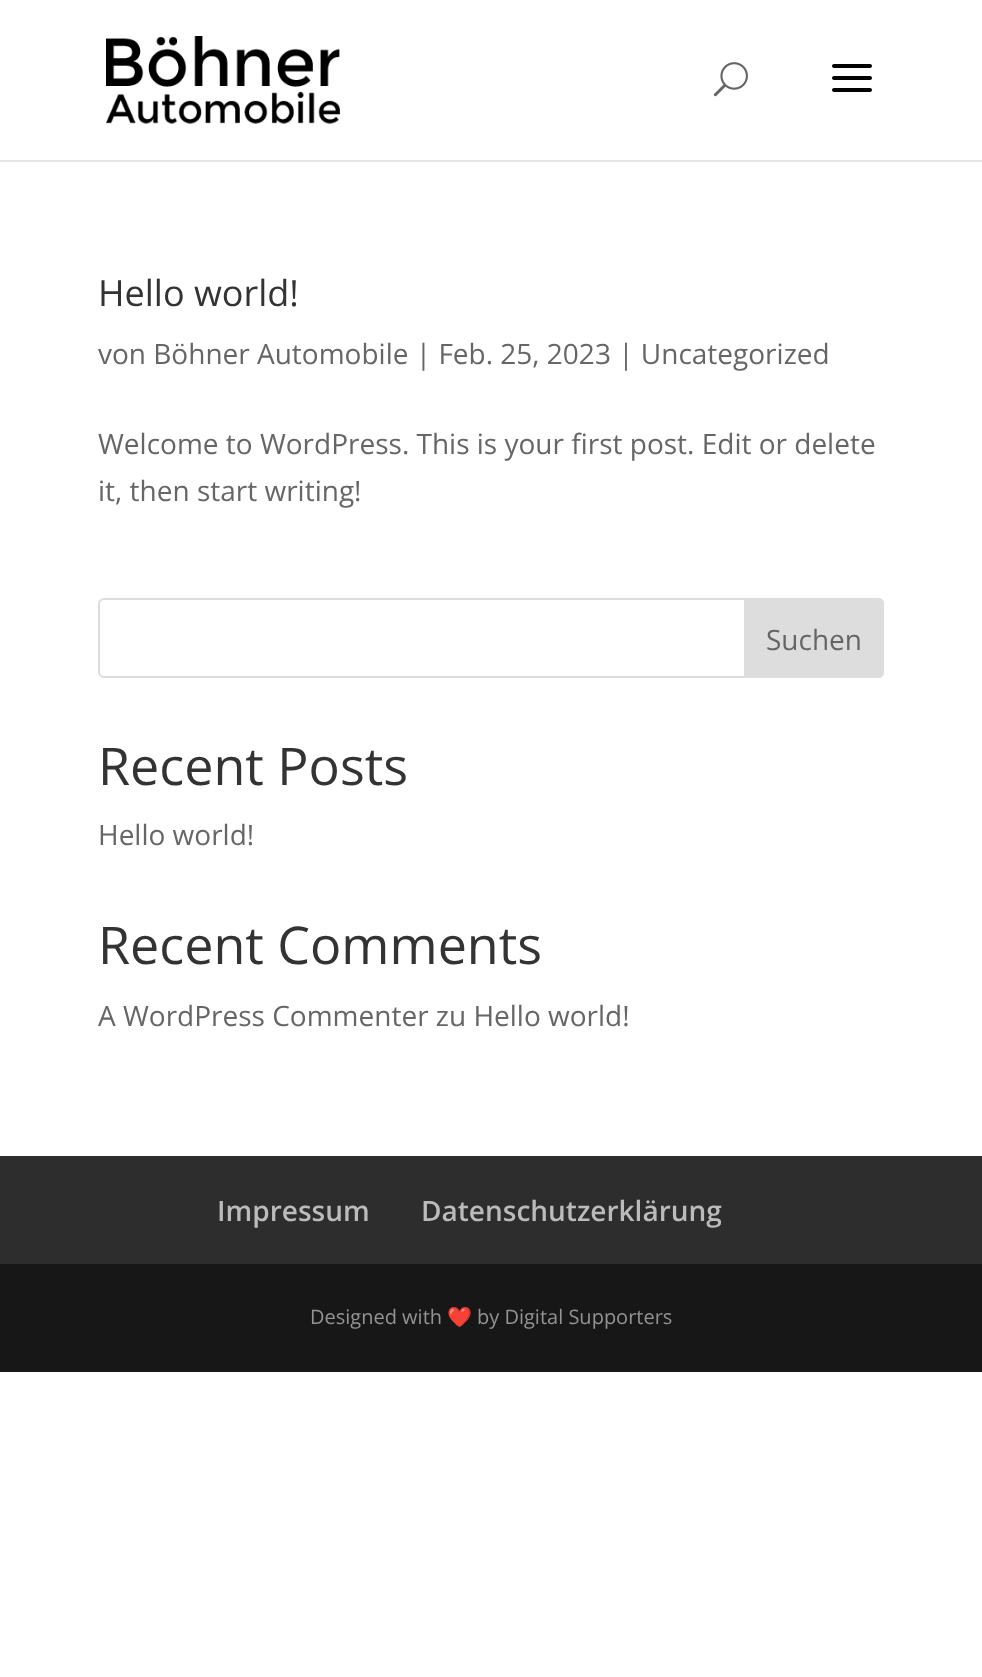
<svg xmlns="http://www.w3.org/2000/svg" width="982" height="1677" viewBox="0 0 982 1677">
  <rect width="100%" height="100%" fill="#ffffff"/>
  <rect x="0" y="160" width="982" height="2" fill="#e6e6e6"/>
  <image x="106" y="36" width="234" height="88" href="img1.png"/>
  <image x="713" y="62" width="35" height="35" href="img2.png"/>
  <image x="832" y="64" width="40" height="28" href="img3.png"/>
  <text x="98" y="306" font-family="Open Sans" font-size="36" fill="#333333">Hello world!</text>
  <text x="98" y="364" font-family="Open Sans" font-size="28" fill="#666666">von Böhner Automobile | Feb. 25, 2023 | Uncategorized</text>
  <text x="98" y="454" font-family="Open Sans" font-size="28" fill="#666666">Welcome to WordPress. This is your first post. Edit or delete</text>
  <text x="98" y="501" font-family="Open Sans" font-size="28" fill="#666666">it, then start writing!</text>
  <rect x="99" y="599" width="784" height="78" rx="5" fill="none" stroke="#dddddd" stroke-width="2"/>
  <path d="M745 599H878C881 599 883 601 883 604V672C883 675 881 677 878 677H745Z" fill="#dddddd" stroke="#dddddd" stroke-width="2"/>
  <text x="766" y="650" font-family="Open Sans" font-size="28" fill="#666666">Suchen</text>
  <text x="98" y="785" font-family="Open Sans" font-size="52" fill="#333333">Recent Posts</text>
  <text x="98" y="845" font-family="Open Sans" font-size="28" fill="#666666">Hello world!</text>
  <text x="98" y="964" font-family="Open Sans" font-size="52" fill="#333333">Recent Comments</text>
  <text x="98" y="1026" font-family="Open Sans" font-size="28" fill="#666666">A WordPress Commenter zu Hello world!</text>
  <rect x="0" y="1156" width="982" height="108" fill="#2d2d2d"/>
  <text x="217" y="1221" font-family="Open Sans" font-size="28" font-weight="600" fill="#bbbbbb">Impressum</text>
  <text x="421" y="1221" font-family="Open Sans" font-size="28" font-weight="600" fill="#bbbbbb">Datenschutzerklärung</text>
  <rect x="0" y="1264" width="982" height="108" fill="#171717"/>
  <text x="310" y="1324" font-family="Open Sans" font-size="20" fill="#939393">Designed with</text>
  <text x="447" y="1324" font-family="Noto Color Emoji" font-size="20" fill="#939393">❤️</text>
  <text x="477" y="1324" font-family="Open Sans" font-size="20" fill="#939393">by Digital Supporters</text>
</svg>
